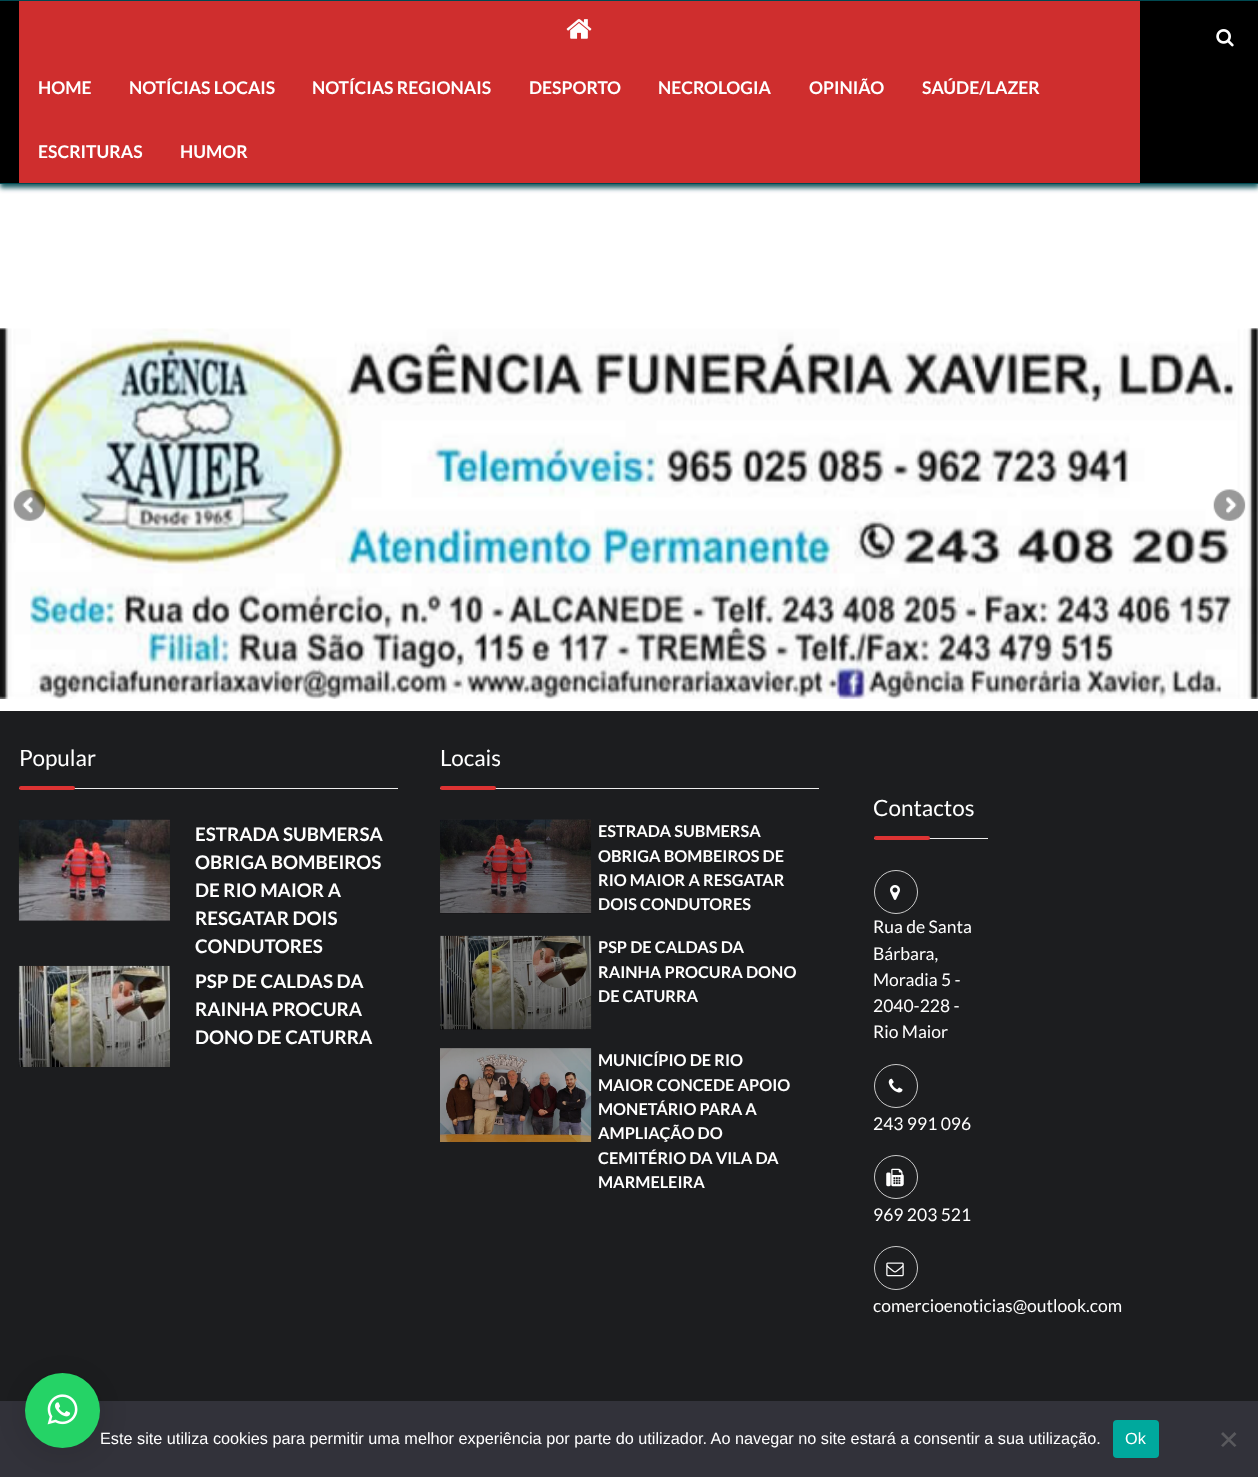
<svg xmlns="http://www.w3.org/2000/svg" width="1258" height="1477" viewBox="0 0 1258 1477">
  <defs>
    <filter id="blur1" x="-50%" y="-200%" width="200%" height="500%"><feGaussianBlur stdDeviation="2.5"/></filter>
    <filter id="blur2" x="-50%" y="-200%" width="200%" height="500%"><feGaussianBlur stdDeviation="20"/></filter>
  </defs>
  <rect width="100%" height="100%" fill="#ffffff"/>
  <rect x="0" y="4" width="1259" height="184" fill="#004951" fill-opacity="0.89" filter="url(#blur1)"/>
  <rect x="0" y="1" width="1258" height="182" fill="#000000"/>
  <rect x="0" y="0" width="1258" height="1" fill="#004951"/>
  <rect x="0" y="183" width="1258" height="1" fill="#004951"/>
  <image x="1216" y="29" width="18" height="18" href="img1.png"/>
  <rect x="19" y="1" width="1121" height="182" fill="#cf2e2e"/>
  <image x="566" y="19" width="26" height="20" href="img2.png"/>
  <text x="38" y="94" font-family="Lato" font-size="17.5" font-weight="bold" fill="#ffffff">HOME</text>
  <text x="129" y="94" font-family="Lato" font-size="17.5" font-weight="bold" fill="#ffffff">NOTÍCIAS LOCAIS</text>
  <text x="312" y="94" font-family="Lato" font-size="17.5" font-weight="bold" fill="#ffffff">NOTÍCIAS REGIONAIS</text>
  <text x="529" y="94" font-family="Lato" font-size="17.5" font-weight="bold" fill="#ffffff">DESPORTO</text>
  <text x="658" y="94" font-family="Lato" font-size="17.5" font-weight="bold" fill="#ffffff">NECROLOGIA</text>
  <text x="809" y="94" font-family="Lato" font-size="17.5" font-weight="bold" fill="#ffffff">OPINIÃO</text>
  <text x="922" y="94" font-family="Lato" font-size="17.5" font-weight="bold" fill="#ffffff">SAÚDE/LAZER</text>
  <text x="38" y="158" font-family="Lato" font-size="17.5" font-weight="bold" fill="#ffffff">ESCRITURAS</text>
  <text x="180" y="158" font-family="Lato" font-size="17.5" font-weight="bold" fill="#ffffff">HUMOR</text>
  <image x="0" y="328" width="1258" height="371" href="img3.png"/>
  <image x="13" y="489" width="33" height="32" href="img4.png"/>
  <image x="1213" y="489" width="33" height="32" href="img5.png"/>
  <rect x="0" y="711" width="1258" height="690" fill="#1c1d1f"/>
  <rect x="440" y="1029" width="151" height="1" fill="#141416"/>
  <rect x="440" y="913" width="151" height="1" fill="#141416"/>
  <rect x="19" y="788" width="379" height="1" fill="#eeeeee"/>
  <text x="19" y="766" font-family="Lato" font-size="22.5" fill="#ffffff">Popular</text>
  <rect x="19" y="786" width="56" height="4" rx="2" fill="#dd3333"/>
  <image x="18" y="819" width="152" height="102" href="img6.png"/>
  <text x="195" y="841" font-family="Lato" font-size="18.75" font-weight="bold" fill="#ffffff">ESTRADA SUBMERSA</text>
  <text x="195" y="869" font-family="Lato" font-size="18.75" font-weight="bold" fill="#ffffff">OBRIGA BOMBEIROS</text>
  <text x="195" y="897" font-family="Lato" font-size="18.75" font-weight="bold" fill="#ffffff">DE RIO MAIOR A</text>
  <text x="195" y="925" font-family="Lato" font-size="18.75" font-weight="bold" fill="#ffffff">RESGATAR DOIS</text>
  <text x="195" y="953" font-family="Lato" font-size="18.75" font-weight="bold" fill="#ffffff">CONDUTORES</text>
  <image x="18" y="965" width="152" height="102" href="img7.png"/>
  <text x="195" y="988" font-family="Lato" font-size="18.75" font-weight="bold" fill="#ffffff">PSP DE CALDAS DA</text>
  <text x="195" y="1016" font-family="Lato" font-size="18.75" font-weight="bold" fill="#ffffff">RAINHA PROCURA</text>
  <text x="195" y="1044" font-family="Lato" font-size="18.75" font-weight="bold" fill="#ffffff">DONO DE CATURRA</text>
  <rect x="440" y="788" width="379" height="1" fill="#eeeeee"/>
  <text x="440" y="766" font-family="Lato" font-size="22.5" fill="#ffffff">Locais</text>
  <rect x="440" y="786" width="56" height="4" rx="2" fill="#dd3333"/>
  <image x="440" y="819" width="152" height="95" href="img8.png"/>
  <text x="598" y="837" font-family="Lato" font-size="16.25" font-weight="bold" fill="#ffffff">ESTRADA SUBMERSA</text>
  <text x="598" y="862" font-family="Lato" font-size="16.25" font-weight="bold" fill="#ffffff">OBRIGA BOMBEIROS DE</text>
  <text x="598" y="886" font-family="Lato" font-size="16.25" font-weight="bold" fill="#ffffff">RIO MAIOR A RESGATAR</text>
  <text x="598" y="910" font-family="Lato" font-size="16.25" font-weight="bold" fill="#ffffff">DOIS CONDUTORES</text>
  <image x="440" y="935" width="152" height="95" href="img9.png"/>
  <text x="598" y="953" font-family="Lato" font-size="16.25" font-weight="bold" fill="#ffffff">PSP DE CALDAS DA</text>
  <text x="598" y="978" font-family="Lato" font-size="16.25" font-weight="bold" fill="#ffffff">RAINHA PROCURA DONO</text>
  <text x="598" y="1002" font-family="Lato" font-size="16.25" font-weight="bold" fill="#ffffff">DE CATURRA</text>
  <image x="440" y="1048" width="152" height="94" href="img10.png"/>
  <text x="598" y="1066" font-family="Lato" font-size="16.25" font-weight="bold" fill="#ffffff">MUNICÍPIO DE RIO</text>
  <text x="598" y="1091" font-family="Lato" font-size="16.25" font-weight="bold" fill="#ffffff">MAIOR CONCEDE APOIO</text>
  <text x="598" y="1115" font-family="Lato" font-size="16.25" font-weight="bold" fill="#ffffff">MONETÁRIO PARA A</text>
  <text x="598" y="1139" font-family="Lato" font-size="16.25" font-weight="bold" fill="#ffffff">AMPLIAÇÃO DO</text>
  <text x="598" y="1164" font-family="Lato" font-size="16.25" font-weight="bold" fill="#ffffff">CEMITÉRIO DA VILA DA</text>
  <text x="598" y="1188" font-family="Lato" font-size="16.25" font-weight="bold" fill="#ffffff">MARMELEIRA</text>
  <rect x="874" y="838" width="114" height="1" fill="#eeeeee"/>
  <text x="873" y="816" font-family="Lato" font-size="22.5" fill="#ffffff">Contactos</text>
  <rect x="874" y="836" width="56" height="4" rx="2" fill="#dd3333"/>
  <circle cx="896" cy="892" r="21.5" fill="none" stroke="#cccccc"/>
  <image x="890" y="885" width="10" height="15" href="img11.png"/>
  <text x="873" y="933" font-family="Lato" font-size="17.5" fill="#ffffff">Rua de Santa</text>
  <text x="873" y="960" font-family="Lato" font-size="17.5" fill="#ffffff">Bárbara,</text>
  <text x="873" y="986" font-family="Lato" font-size="17.5" fill="#ffffff">Moradia 5 -</text>
  <text x="873" y="1012" font-family="Lato" font-size="17.5" fill="#ffffff">2040-228 -</text>
  <text x="873" y="1038" font-family="Lato" font-size="17.5" fill="#ffffff">Rio Maior</text>
  <circle cx="896" cy="1086" r="21.5" fill="none" stroke="#cccccc"/>
  <image x="888" y="1078" width="15" height="15" href="img12.png"/>
  <text x="873" y="1130" font-family="Lato" font-size="17.5" fill="#ffffff">243 991 096</text>
  <circle cx="896" cy="1177" r="21.5" fill="none" stroke="#cccccc"/>
  <image x="886" y="1168" width="18" height="19" href="img13.png"/>
  <text x="873" y="1221" font-family="Lato" font-size="17.5" fill="#ffffff">969 203 521</text>
  <circle cx="896" cy="1268" r="21.5" fill="none" stroke="#cccccc"/>
  <image x="886" y="1262" width="18" height="15" href="img14.png"/>
  <text x="873" y="1312" font-family="Lato" font-size="17.5" fill="#ffffff">comercioenoticias@outlook.com</text>
  <rect x="0" y="1401" width="1258" height="76" fill="#32323a"/>
  <rect x="25" y="1375" width="75" height="75" rx="37.5" fill="#000000" fill-opacity="0.16" filter="url(#blur2)"/>
  <circle cx="62.5" cy="1410.5" r="37.5" fill="#25d366"/>
  <image x="47" y="1394" width="31" height="31" href="img15.png"/>
  <text x="100" y="1444" font-family="Liberation Sans" font-size="16.25" fill="#ffffff">Este site utiliza cookies para permitir uma melhor experiência por parte do utilizador. Ao navegar no site estará a consentir a sua utilização.</text>
  <rect x="1113" y="1420" width="46" height="38" rx="4" fill="#00a99d"/>
  <text x="1125" y="1444" font-family="Liberation Sans" font-size="16.25" fill="#ffffff">Ok</text>
  <path d="M1234.5 1432L1236.5 1434L1223 1447L1221 1445.5Z" fill="#59595d"/>
  <path d="M1221 1434L1223 1432L1236.5 1445.5L1234.5 1447Z" fill="#59595d"/>
</svg>
